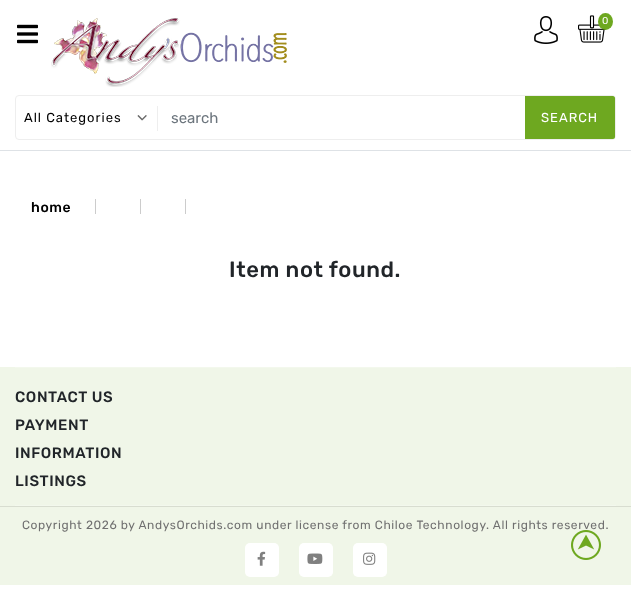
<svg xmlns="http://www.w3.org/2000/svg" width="631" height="590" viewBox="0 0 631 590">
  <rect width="100%" height="100%" fill="#ffffff"/>
  <rect x="0" y="150" width="631" height="1" fill="#dee2e6"/>
  <image x="17" y="24" width="21" height="20" href="img1.png"/>
  <image x="51" y="18" width="236" height="69" href="img2.png"/>
  <image x="534" y="16" width="24" height="28" href="img3.png"/>
  <image x="578" y="15" width="28" height="28" href="img4.png"/>
  <ellipse cx="605.5" cy="21.5" rx="7.5" ry="8.5" fill="#6ea820"/>
  <text x="602" y="24" font-family="Rubik" font-size="10" letter-spacing="0.6" fill="#ffffff">0</text>
  <rect x="15.5" y="95.5" width="600" height="44" rx="3.5" fill="none" stroke="#eeeeee"/>
  <image x="137" y="115" width="10" height="6" href="img5.png"/>
  <text x="24" y="122" font-family="Rubik" font-size="13" letter-spacing="1" fill="#000000">All Categories</text>
  <rect x="157" y="106" width="1" height="25" fill="#eeeeee"/>
  <text x="171" y="123" font-family="Rubik" font-size="15" fill="#6c757d">search</text>
  <path d="M525 96H613C614 96 615 97 615 98V137C615 138 614 139 613 139H525Z" fill="#6ea820"/>
  <text x="541" y="122" font-family="Rubik" font-size="13" letter-spacing="1" fill="#ffffff">SEARCH</text>
  <text x="31" y="212" font-family="Rubik" font-size="14" font-weight="500" letter-spacing="0.6" fill="#000000">home</text>
  <rect x="95" y="199" width="1" height="15" fill="#cccccc"/>
  <rect x="140" y="199" width="1" height="15" fill="#cccccc"/>
  <rect x="185" y="199" width="1" height="15" fill="#cccccc"/>
  <text x="229" y="277" font-family="Rubik" font-size="22" font-weight="500" letter-spacing="0.6" fill="#212529">Item not found.</text>
  <rect x="0" y="367" width="631" height="139" fill="#f0f6e8"/>
  <rect x="15" y="367" width="601" height="1" fill="#f3f8ed"/>
  <rect x="15" y="505" width="601" height="1" fill="#f3f8ed"/>
  <text x="15" y="402" font-family="Rubik" font-size="15" font-weight="500" letter-spacing="0.6" fill="#212529">CONTACT US</text>
  <text x="15" y="430" font-family="Rubik" font-size="15" font-weight="500" letter-spacing="0.6" fill="#212529">PAYMENT</text>
  <text x="15" y="458" font-family="Rubik" font-size="15" font-weight="500" letter-spacing="0.6" fill="#212529">INFORMATION</text>
  <text x="15" y="486" font-family="Rubik" font-size="15" font-weight="500" letter-spacing="0.6" fill="#212529">LISTINGS</text>
  <rect x="0" y="507" width="631" height="78" fill="#f0f6e8"/>
  <rect x="0" y="506" width="631" height="1" fill="#d8ddd0"/>
  <text x="22" y="529" font-family="Rubik" font-size="12" letter-spacing="0.6" fill="#707070">Copyright 2026 by AndysOrchids.com under license from Chiloe Technology. All rights reserved.</text>
  <rect x="245" y="543" width="34" height="34" rx="5" fill="#ffffff"/>
  <image x="257" y="551" width="9" height="15" href="img6.png"/>
  <rect x="299" y="543" width="34" height="34" rx="5" fill="#ffffff"/>
  <image x="307" y="553" width="16" height="11" href="img7.png"/>
  <rect x="353" y="543" width="34" height="34" rx="5" fill="#ffffff"/>
  <image x="363" y="552" width="13" height="13" href="img8.png"/>
  <image x="571" y="530" width="30" height="30" href="img9.png"/>
</svg>
